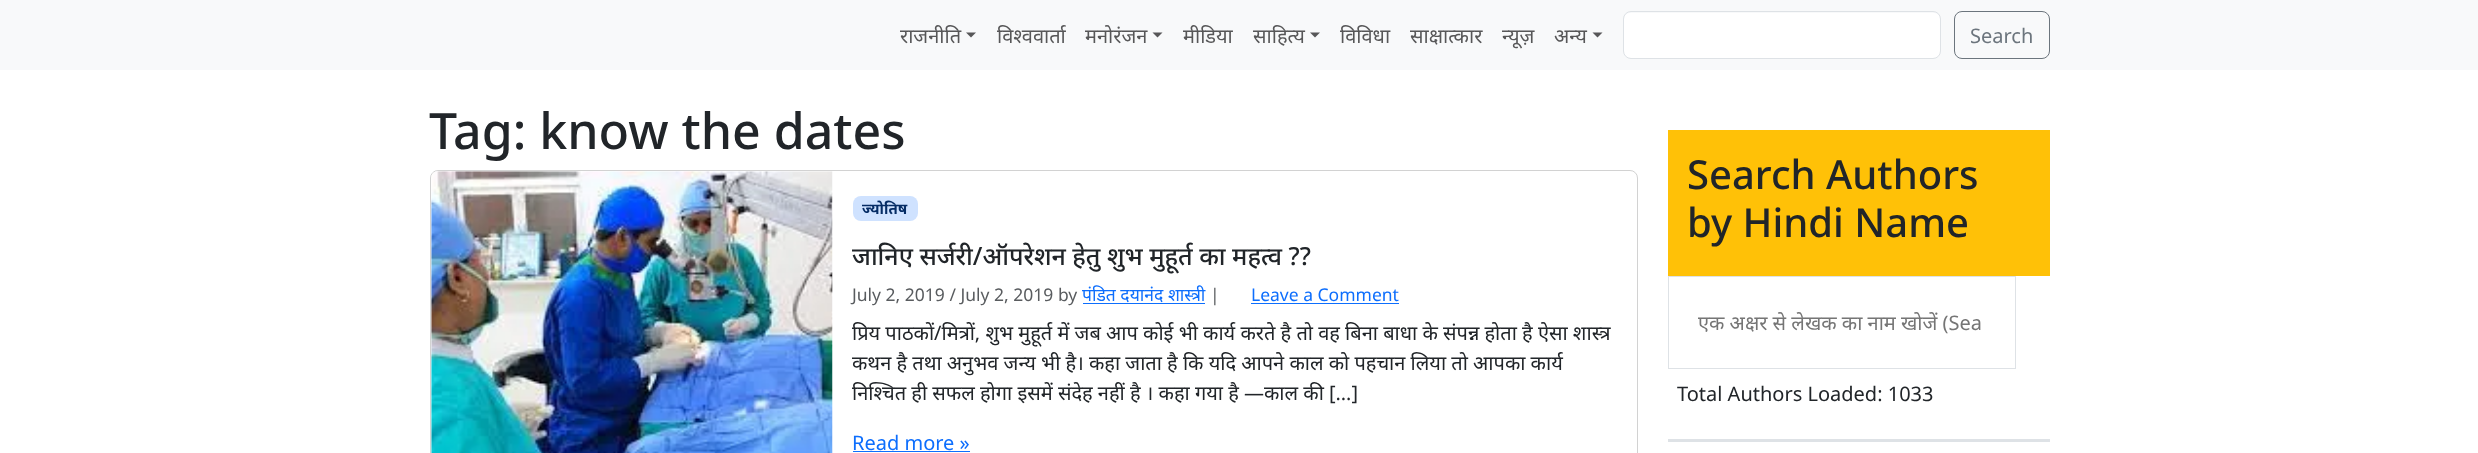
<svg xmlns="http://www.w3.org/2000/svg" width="2478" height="453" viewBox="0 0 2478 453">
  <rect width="100%" height="100%" fill="#ffffff"/>
  <rect x="0" y="0" width="2478" height="70" fill="#f8f9fa"/>
  <text x="900" y="43" font-family="Noto Sans" font-size="20" fill="#575758">राजनीति</text>
  <path d="M966 32.5H976L971 37.5Z" fill="#575758"/>
  <text x="997" y="43" font-family="Noto Sans" font-size="20" fill="#575758">विश्ववार्ता</text>
  <text x="1085" y="43" font-family="Noto Sans" font-size="20" fill="#575758">मनोरंजन</text>
  <path d="M1152.5 32.5H1162.5L1157.5 37.5Z" fill="#575758"/>
  <text x="1183" y="43" font-family="Noto Sans" font-size="20" fill="#575758">मीडिया</text>
  <text x="1253" y="43" font-family="Noto Sans" font-size="20" fill="#575758">साहित्‍य</text>
  <path d="M1310 32.5H1320L1315 37.5Z" fill="#575758"/>
  <text x="1340" y="43" font-family="Noto Sans" font-size="20" fill="#575758">विविधा</text>
  <text x="1410" y="43" font-family="Noto Sans" font-size="20" fill="#575758">साक्षात्‍कार</text>
  <text x="1502" y="43" font-family="Noto Sans" font-size="20" fill="#575758">न्यूज़</text>
  <text x="1554" y="43" font-family="Noto Sans" font-size="20" fill="#575758">अन्य</text>
  <path d="M1592.5 32.5H1602.5L1597.5 37.5Z" fill="#575758"/>
  <rect x="1624" y="13" width="316" height="45" rx="6" fill="#ffffff"/>
  <rect x="1623.5" y="11.5" width="317" height="47" rx="7.5" fill="none" stroke="#dee2e6"/>
  <rect x="1954.5" y="11.5" width="95" height="47" rx="7.5" fill="none" stroke="#6c757d"/>
  <text x="1970" y="43" font-family="Noto Sans" font-size="20" fill="#6c757d">Search</text>
  <text x="429" y="149" font-family="Noto Sans" font-size="50" font-weight="500" fill="#212529">Tag: know the dates</text>
  <rect x="430.5" y="170.5" width="1207" height="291" rx="7.5" fill="none" stroke="#d2d2d2"/>
  <image x="431" y="171" width="402" height="282" href="img1.png"/>
  <rect x="853" y="196" width="65" height="25" rx="8" fill="#cfe2ff"/>
  <text x="862" y="214" font-family="Noto Sans" font-size="15" font-weight="bold" fill="#052c65">ज्योतिष</text>
  <text x="852" y="265" font-family="Noto Sans" font-size="25" font-weight="500" fill="#212529">जानिए सर्जरी/ऑपरेशन हेतु शुभ मुहूर्त का महत्व ??</text>
  <text x="852" y="301" font-family="Noto Sans" font-size="17.5" fill="#595c5f">July 2, 2019 / July 2, 2019 by</text>
  <text x="1082" y="301" font-family="Noto Sans" font-size="17.5" fill="#0d6efd">पंडित दयानंद शास्त्री</text>
  <rect x="1083" y="303" width="122" height="1" fill="#0d6efd"/>
  <text x="1210" y="301" font-family="Noto Sans" font-size="17.5" fill="#595c5f">|</text>
  <text x="1251" y="301" font-family="Noto Sans" font-size="17.5" fill="#0d6efd">Leave a Comment</text>
  <rect x="1251" y="303" width="148" height="1" fill="#0d6efd"/>
  <text x="852" y="340" font-family="Noto Sans" font-size="20" fill="#212529">प्रिय पाठकों/मित्रों, शुभ मुहूर्त में जब आप कोई भी कार्य करते है तो वह बिना बाधा के संपन्न होता है ऐसा शास्त्र</text>
  <text x="852" y="370" font-family="Noto Sans" font-size="20" fill="#212529">कथन है तथा अनुभव जन्य भी है। कहा जाता है कि यदि आपने काल को पहचान लिया तो आपका कार्य</text>
  <text x="852" y="400" font-family="Noto Sans" font-size="20" fill="#212529">निश्चित ही सफल होगा इसमें संदेह नहीं है । कहा गया है —काल की […]</text>
  <text x="852" y="450" font-family="Noto Sans" font-size="20" fill="#0d6efd">Read more »</text>
  <rect x="853" y="451" width="117" height="1" fill="#0d6efd"/>
  <rect x="1668" y="130" width="382" height="146" fill="#ffc107"/>
  <text x="1687" y="189" font-family="Noto Sans" font-size="40" font-weight="500" fill="#212529">Search Authors</text>
  <text x="1687" y="237" font-family="Noto Sans" font-size="40" font-weight="500" fill="#212529">by Hindi Name</text>
  <rect x="1668.5" y="276.5" width="347" height="92" fill="none" stroke="#dee2e6"/>
  <text x="1698" y="330" font-family="Noto Sans" font-size="20" fill="#757575">एक अक्षर से लेखक का नाम खोजें (Sea</text>
  <text x="1677" y="401" font-family="Noto Sans" font-size="20" fill="#212529">Total Authors Loaded: 1033</text>
  <rect x="1668" y="439" width="382" height="3" fill="#dee2e6"/>
</svg>
